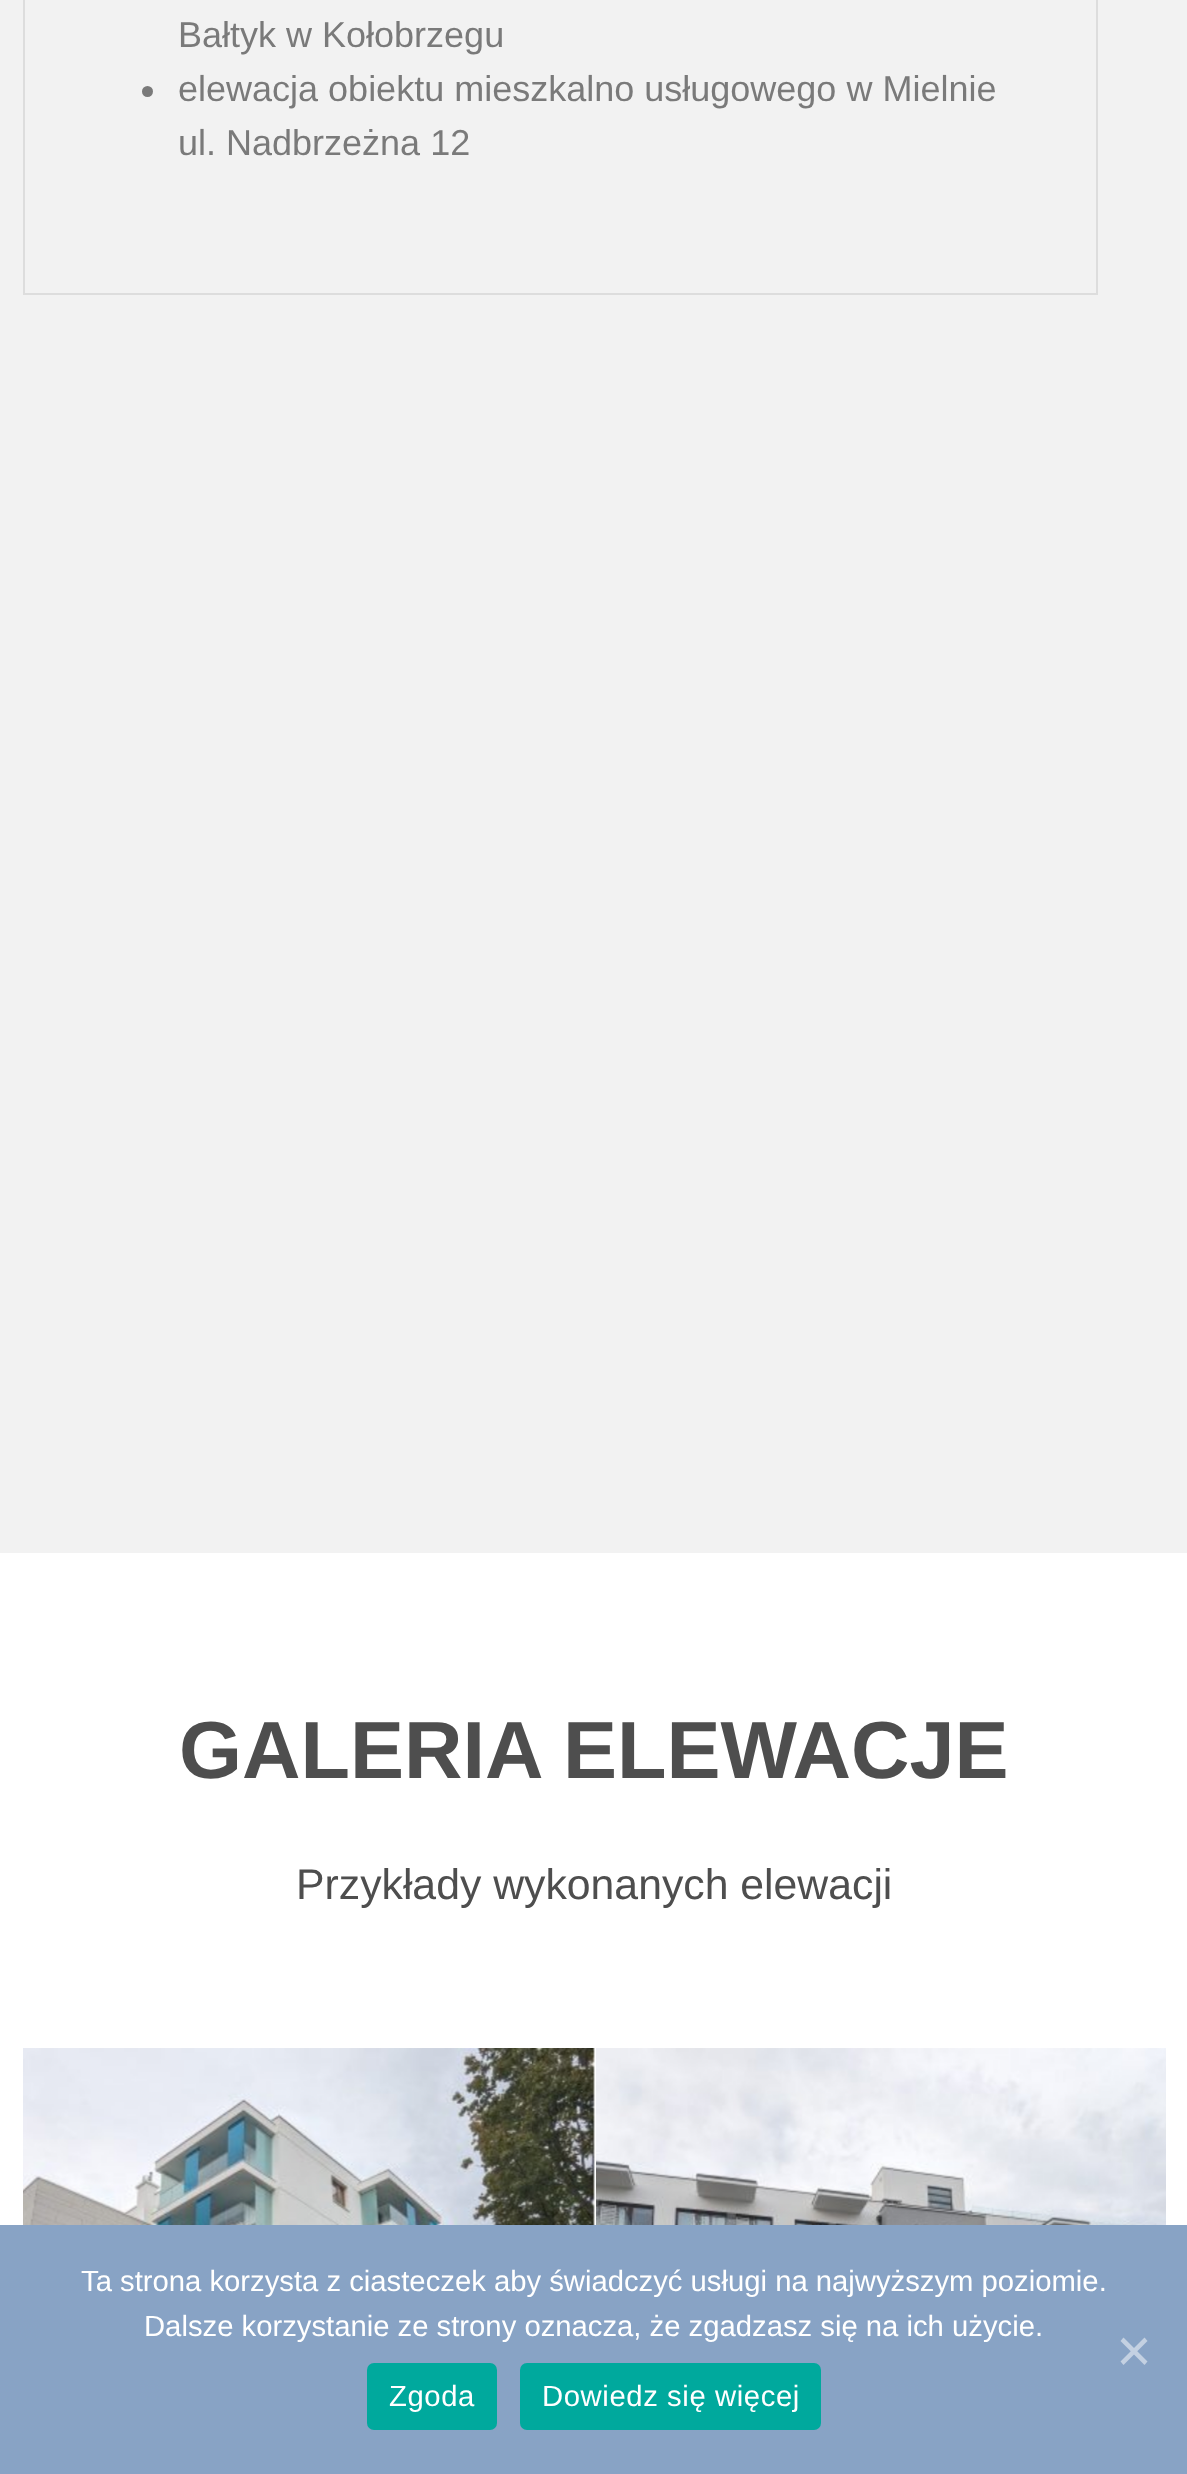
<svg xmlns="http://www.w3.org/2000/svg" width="1187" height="2474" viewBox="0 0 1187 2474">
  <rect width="100%" height="100%" fill="#ffffff"/>
  <rect x="0" y="0" width="1187" height="1553" fill="#f2f2f2"/>
  <rect x="24" y="-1" width="1073" height="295" fill="none" stroke="#dddddd" stroke-width="2"/>
  <text x="178" y="47" font-family="Liberation Sans" font-size="36" fill="#7a7a7a">Bałtyk w Kołobrzegu</text>
  <circle cx="147.5" cy="91.5" r="5.5" fill="#7a7a7a"/>
  <text x="178" y="101" font-family="Liberation Sans" font-size="36" fill="#7a7a7a">elewacja obiektu mieszkalno usługowego w Mielnie</text>
  <text x="178" y="155" font-family="Liberation Sans" font-size="36" fill="#7a7a7a">ul. Nadbrzeżna 12</text>
  <text x="179" y="1778" font-family="Liberation Sans" font-size="81" font-weight="bold" fill="#4e4e4e">GALERIA ELEWACJE</text>
  <text x="296" y="1899" font-family="Liberation Sans" font-size="42.75" fill="#4e4e4e">Przykłady wykonanych elewacji</text>
  <image x="23" y="2048" width="572" height="177" href="img1.png"/>
  <image x="596" y="2048" width="570" height="177" href="img2.png"/>
  <rect x="0" y="2225" width="1187" height="249" fill="#88a3c5"/>
  <text x="81" y="2291" font-family="Liberation Sans" font-size="29.25" fill="#ffffff">Ta strona korzysta z ciasteczek aby świadczyć usługi na najwyższym poziomie.</text>
  <text x="144" y="2336" font-family="Liberation Sans" font-size="29.25" fill="#ffffff">Dalsze korzystanie ze strony oznacza, że zgadzasz się na ich użycie.</text>
  <path d="M1144.5 2337.5L1147.5 2341L1123.5 2365L1120.5 2361.5Z" fill="#c4d1e2"/>
  <path d="M1120.5 2341L1123.5 2337.5L1147.5 2361.5L1144.5 2365Z" fill="#c4d1e2"/>
  <rect x="367" y="2363" width="130" height="67" rx="7" fill="#00a99d"/>
  <text x="389" y="2406" font-family="Liberation Sans" font-size="29.25" letter-spacing="0.6" fill="#ffffff">Zgoda</text>
  <rect x="520" y="2363" width="301" height="67" rx="7" fill="#00a99d"/>
  <text x="542" y="2406" font-family="Liberation Sans" font-size="29.25" letter-spacing="0.6" fill="#ffffff">Dowiedz się więcej</text>
</svg>
